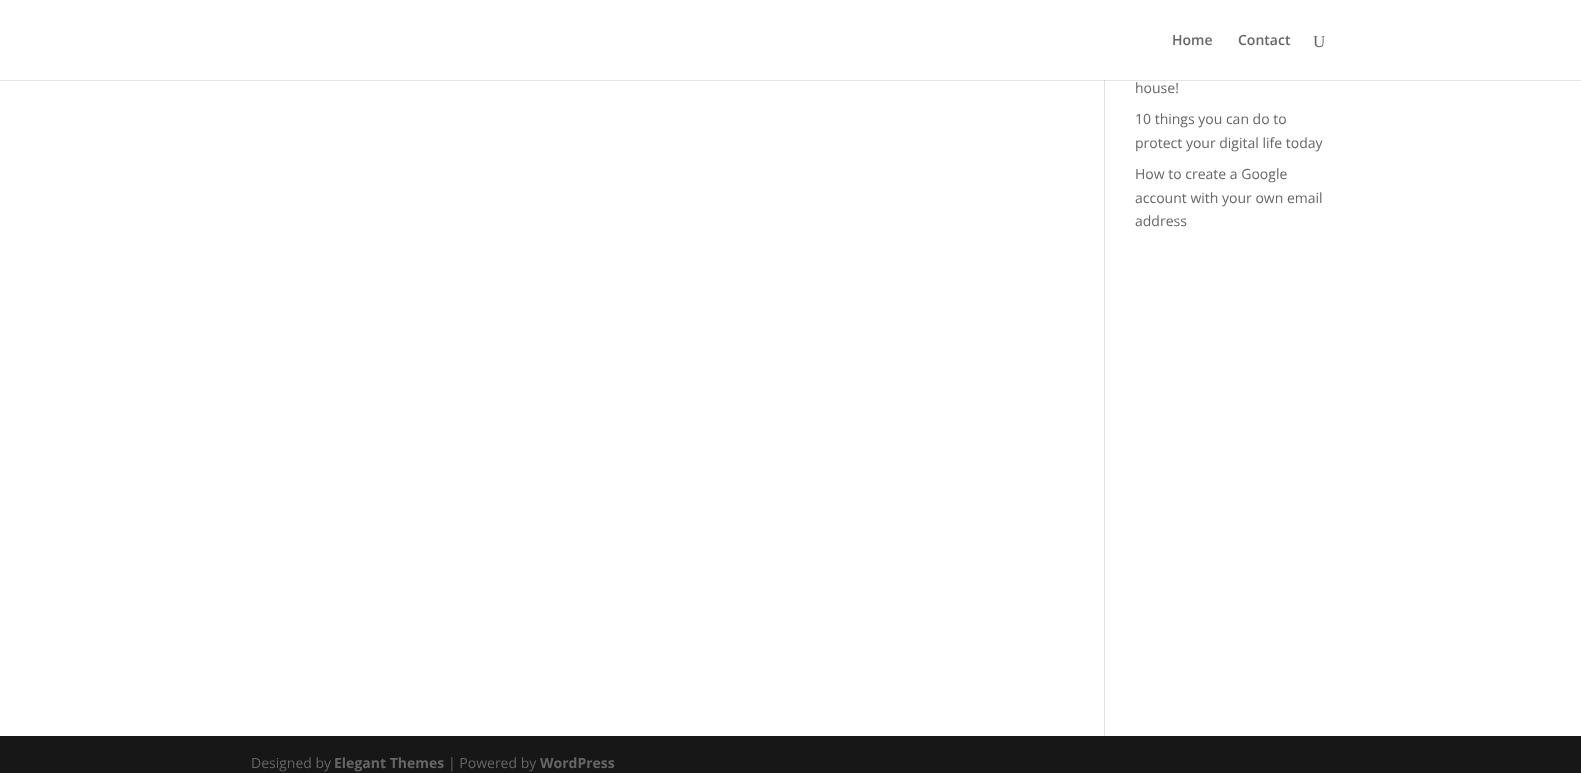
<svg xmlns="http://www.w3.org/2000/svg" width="1581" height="773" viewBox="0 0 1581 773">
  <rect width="100%" height="100%" fill="#ffffff"/>
  <rect x="1104" y="80" width="1" height="656" fill="#e2e2e2"/>
  <rect x="0" y="80" width="1581" height="1" fill="#000000" fill-opacity="0.1"/>
  <text x="1172" y="45" font-family="Open Sans" font-size="14" font-weight="600" fill="#666666">Home</text>
  <text x="1238" y="45" font-family="Open Sans" font-size="14" font-weight="600" fill="#666666">Contact</text>
  <text x="1313" y="47" font-family="Liberation Serif" font-size="17" fill="#666666">U</text>
  <text x="1135" y="93" font-family="Open Sans" font-size="14" fill="#666666">house!</text>
  <text x="1135" y="124" font-family="Open Sans" font-size="14" fill="#666666">10 things you can do to</text>
  <text x="1135" y="148" font-family="Open Sans" font-size="14" fill="#666666">protect your digital life today</text>
  <text x="1135" y="179" font-family="Open Sans" font-size="14" fill="#666666">How to create a Google</text>
  <text x="1135" y="203" font-family="Open Sans" font-size="14" fill="#666666">account with your own email</text>
  <text x="1135" y="226" font-family="Open Sans" font-size="14" fill="#666666">address</text>
  <rect x="0" y="736" width="1581" height="37" fill="#171717"/>
  <text x="251" y="768" font-family="Open Sans" font-size="14" fill="#666666">Designed by</text>
  <text x="334" y="768" font-family="Open Sans" font-size="14" font-weight="bold" fill="#666666">Elegant Themes</text>
  <text x="448" y="768" font-family="Open Sans" font-size="14" fill="#666666">| Powered by</text>
  <text x="540" y="768" font-family="Open Sans" font-size="14" font-weight="bold" fill="#666666">WordPress</text>
</svg>
